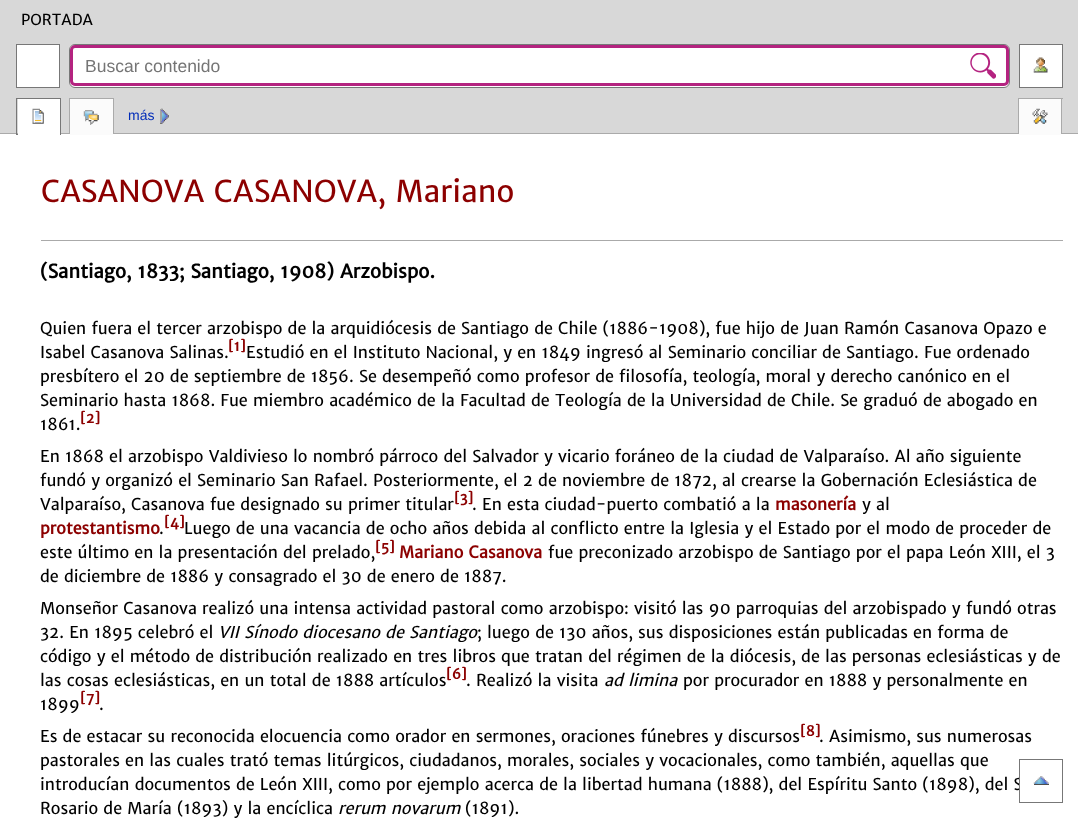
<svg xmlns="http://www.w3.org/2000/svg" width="1078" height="818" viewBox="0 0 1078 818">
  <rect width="100%" height="100%" fill="#d8d8d8"/>
  <rect x="0" y="133" width="1078" height="1" fill="#aaaaaa"/>
  <text x="21" y="25" font-family="Merriweather Sans" font-size="15" fill="#000000">PORTADA</text>
  <rect x="16.5" y="44.5" width="43" height="43" fill="#ffffff" stroke="#777777"/>
  <rect x="69.5" y="44.5" width="940" height="43" rx="5.5" fill="#ffffff" stroke="#777777"/>
  <rect x="71.5" y="46.5" width="936" height="38" rx="3.5" fill="#ffffff" stroke="#b42380" stroke-width="3"/>
  <text x="85" y="72" font-family="Liberation Sans" font-size="17.5" fill="#757575">Buscar contenido</text>
  <image x="970" y="53" width="26" height="26" href="img1.png"/>
  <rect x="1020" y="45" width="42" height="42" fill="#ffffff"/>
  <image x="1033" y="57" width="15" height="16" href="img2.png"/>
  <rect x="1019.5" y="44.5" width="43" height="43" fill="none" stroke="#777777"/>
  <rect x="0" y="134" width="1078" height="684" fill="#ffffff"/>
  <rect x="16.5" y="98.5" width="44" height="36" fill="none" stroke="#777777"/>
  <rect x="18" y="99" width="42" height="36" fill="#ffffff"/>
  <image x="32" y="108" width="12" height="16" href="img3.png"/>
  <rect x="69" y="98" width="45" height="1" fill="#aaaaaa"/>
  <rect x="113" y="98" width="1" height="36" fill="#aaaaaa"/>
  <rect x="69" y="98" width="1" height="36" fill="#aaaaaa"/>
  <rect x="70" y="99" width="43" height="36" fill="#fbfbfb"/>
  <image x="83" y="110" width="16" height="15" href="img4.png"/>
  <image x="160" y="108" width="9" height="16" href="img5.png"/>
  <text x="128" y="120" font-family="Liberation Sans" font-size="14" fill="#002bb8">más</text>
  <rect x="1018" y="98" width="45" height="1" fill="#aaaaaa"/>
  <rect x="1061" y="98" width="1" height="36" fill="#aaaaaa"/>
  <rect x="1018" y="98" width="1" height="36" fill="#aaaaaa"/>
  <rect x="1019" y="99" width="42" height="36" fill="#fbfbfb"/>
  <image x="1032" y="108" width="16" height="16" href="img6.png"/>
  <text x="40" y="790" font-family="Merriweather Sans" font-size="16.25" fill="#000000">introducían documentos de León XIII, como por ejemplo acerca de la libertad humana (1888), del Espíritu Santo (1898), del S</text>
  <rect x="1020" y="778" width="2" height="12" fill="#ffffff"/>
  <image x="1033" y="776" width="16" height="9" href="img7.png"/>
  <rect x="1019.5" y="759.5" width="43" height="43" fill="none" stroke="#777777"/>
  <rect x="41" y="240" width="1022" height="1" fill="#aaaaaa"/>
  <text x="41" y="202" font-family="Merriweather Sans" font-size="30" fill="#8c0000">CASANOVA CASANOVA, Mariano</text>
  <text x="40" y="278" font-family="Merriweather Sans" font-size="18.75" font-weight="bold" fill="#000000">(Santiago, 1833; Santiago, 1908) Arzobispo.</text>
  <text x="40" y="334" font-family="Merriweather Sans" font-size="16.25" fill="#000000">Quien fuera el tercer arzobispo de la arquidiócesis de Santiago de Chile (1886-1908), fue hijo de Juan Ramón Casanova Opazo e</text>
  <text x="40" y="358" font-family="Merriweather Sans" font-size="16.25" fill="#000000">Isabel Casanova Salinas.</text>
  <text x="228" y="351" font-family="Merriweather Sans" font-size="14" font-weight="bold" fill="#8c0000">[1]</text>
  <text x="246" y="358" font-family="Merriweather Sans" font-size="16.25" fill="#000000">Estudió en el Instituto Nacional, y en 1849 ingresó al Seminario conciliar de Santiago. Fue ordenado</text>
  <text x="40" y="382" font-family="Merriweather Sans" font-size="16.25" fill="#000000">presbítero el 20 de septiembre de 1856. Se desempeñó como profesor de filosofía, teología, moral y derecho canónico en el</text>
  <text x="40" y="406" font-family="Merriweather Sans" font-size="16.25" fill="#000000">Seminario hasta 1868. Fue miembro académico de la Facultad de Teología de la Universidad de Chile. Se graduó de abogado en</text>
  <text x="40" y="430" font-family="Merriweather Sans" font-size="16.25" fill="#000000">1861.</text>
  <text x="80" y="423" font-family="Merriweather Sans" font-size="14" font-weight="bold" fill="#8c0000">[2]</text>
  <text x="40" y="462" font-family="Merriweather Sans" font-size="16.25" fill="#000000">En 1868 el arzobispo Valdivieso lo nombró párroco del Salvador y vicario foráneo de la ciudad de Valparaíso. Al año siguiente</text>
  <text x="40" y="486" font-family="Merriweather Sans" font-size="16.25" fill="#000000">fundó y organizó el Seminario San Rafael. Posteriormente, el 2 de noviembre de 1872, al crearse la Gobernación Eclesiástica de</text>
  <text x="40" y="510" font-family="Merriweather Sans" font-size="16.25" fill="#000000">Valparaíso, Casanova fue designado su primer titular</text>
  <text x="454" y="503" font-family="Merriweather Sans" font-size="14" font-weight="bold" fill="#8c0000">[3]</text>
  <text x="472" y="510" font-family="Merriweather Sans" font-size="16.25" fill="#000000">. En esta ciudad-puerto combatió a la</text>
  <text x="775" y="510" font-family="Merriweather Sans" font-size="16.25" font-weight="bold" fill="#8c0000">masonería</text>
  <text x="862" y="510" font-family="Merriweather Sans" font-size="16.25" fill="#000000">y al</text>
  <text x="40" y="534" font-family="Merriweather Sans" font-size="16.25" font-weight="bold" fill="#8c0000">protestantismo</text>
  <text x="159" y="534" font-family="Merriweather Sans" font-size="16.25" fill="#000000">.</text>
  <text x="164" y="527" font-family="Merriweather Sans" font-size="14" font-weight="bold" fill="#8c0000">[4]</text>
  <text x="184" y="534" font-family="Merriweather Sans" font-size="16.25" fill="#000000">Luego de una vacancia de ocho años debida al conflicto entre la Iglesia y el Estado por el modo de proceder de</text>
  <text x="40" y="558" font-family="Merriweather Sans" font-size="16.25" fill="#000000">este último en la presentación del prelado,</text>
  <text x="375" y="552" font-family="Merriweather Sans" font-size="14" font-weight="bold" fill="#8c0000">[5]</text>
  <text x="399" y="558" font-family="Merriweather Sans" font-size="16.25" font-weight="bold" fill="#8c0000">Mariano Casanova</text>
  <text x="548" y="558" font-family="Merriweather Sans" font-size="16.25" fill="#000000">fue preconizado arzobispo de Santiago por el papa León XIII, el 3</text>
  <text x="40" y="582" font-family="Merriweather Sans" font-size="16.25" fill="#000000">de diciembre de 1886 y consagrado el 30 de enero de 1887.</text>
  <text x="40" y="614" font-family="Merriweather Sans" font-size="16.25" fill="#000000">Monseñor Casanova realizó una intensa actividad pastoral como arzobispo: visitó las 90 parroquias del arzobispado y fundó otras</text>
  <text x="40" y="638" font-family="Merriweather Sans" font-size="16.25" fill="#000000">32. En 1895 celebró el</text>
  <text x="218" y="638" font-family="Merriweather Sans" font-size="16.25" font-style="italic" fill="#000000">VII Sínodo diocesano de Santiago</text>
  <text x="477" y="638" font-family="Merriweather Sans" font-size="16.25" fill="#000000">; luego de 130 años, sus disposiciones están publicadas en forma de</text>
  <text x="40" y="662" font-family="Merriweather Sans" font-size="16.25" fill="#000000">código y el método de distribución realizado en tres libros que tratan del régimen de la diócesis, de las personas eclesiásticas y de</text>
  <text x="40" y="686" font-family="Merriweather Sans" font-size="16.25" fill="#000000">las cosas eclesiásticas, en un total de 1888 artículos</text>
  <text x="446" y="679" font-family="Merriweather Sans" font-size="14" font-weight="bold" fill="#8c0000">[6]</text>
  <text x="466" y="686" font-family="Merriweather Sans" font-size="16.25" fill="#000000">. Realizó la visita</text>
  <text x="604" y="686" font-family="Merriweather Sans" font-size="16.25" font-style="italic" fill="#000000">ad limina</text>
  <text x="683" y="686" font-family="Merriweather Sans" font-size="16.25" fill="#000000">por procurador en 1888 y personalmente en</text>
  <text x="40" y="710" font-family="Merriweather Sans" font-size="16.25" fill="#000000">1899</text>
  <text x="80" y="703" font-family="Merriweather Sans" font-size="14" font-weight="bold" fill="#8c0000">[7]</text>
  <text x="99" y="710" font-family="Merriweather Sans" font-size="16.25" fill="#000000">.</text>
  <text x="40" y="742" font-family="Merriweather Sans" font-size="16.25" fill="#000000">Es de estacar su reconocida elocuencia como orador en sermones, oraciones fúnebres y discursos</text>
  <text x="800" y="736" font-family="Merriweather Sans" font-size="14" font-weight="bold" fill="#8c0000">[8]</text>
  <text x="819" y="742" font-family="Merriweather Sans" font-size="16.25" fill="#000000">. Asimismo, sus numerosas</text>
  <text x="40" y="766" font-family="Merriweather Sans" font-size="16.25" fill="#000000">pastorales en las cuales trató temas litúrgicos, ciudadanos, morales, sociales y vocacionales, como también, aquellas que</text>
  <text x="40" y="814" font-family="Merriweather Sans" font-size="16.25" fill="#000000">Rosario de María (1893) y la encíclica</text>
  <text x="338" y="814" font-family="Merriweather Sans" font-size="16.25" font-style="italic" fill="#000000">rerum novarum</text>
  <text x="465" y="814" font-family="Merriweather Sans" font-size="16.25" fill="#000000">(1891).</text>
</svg>
